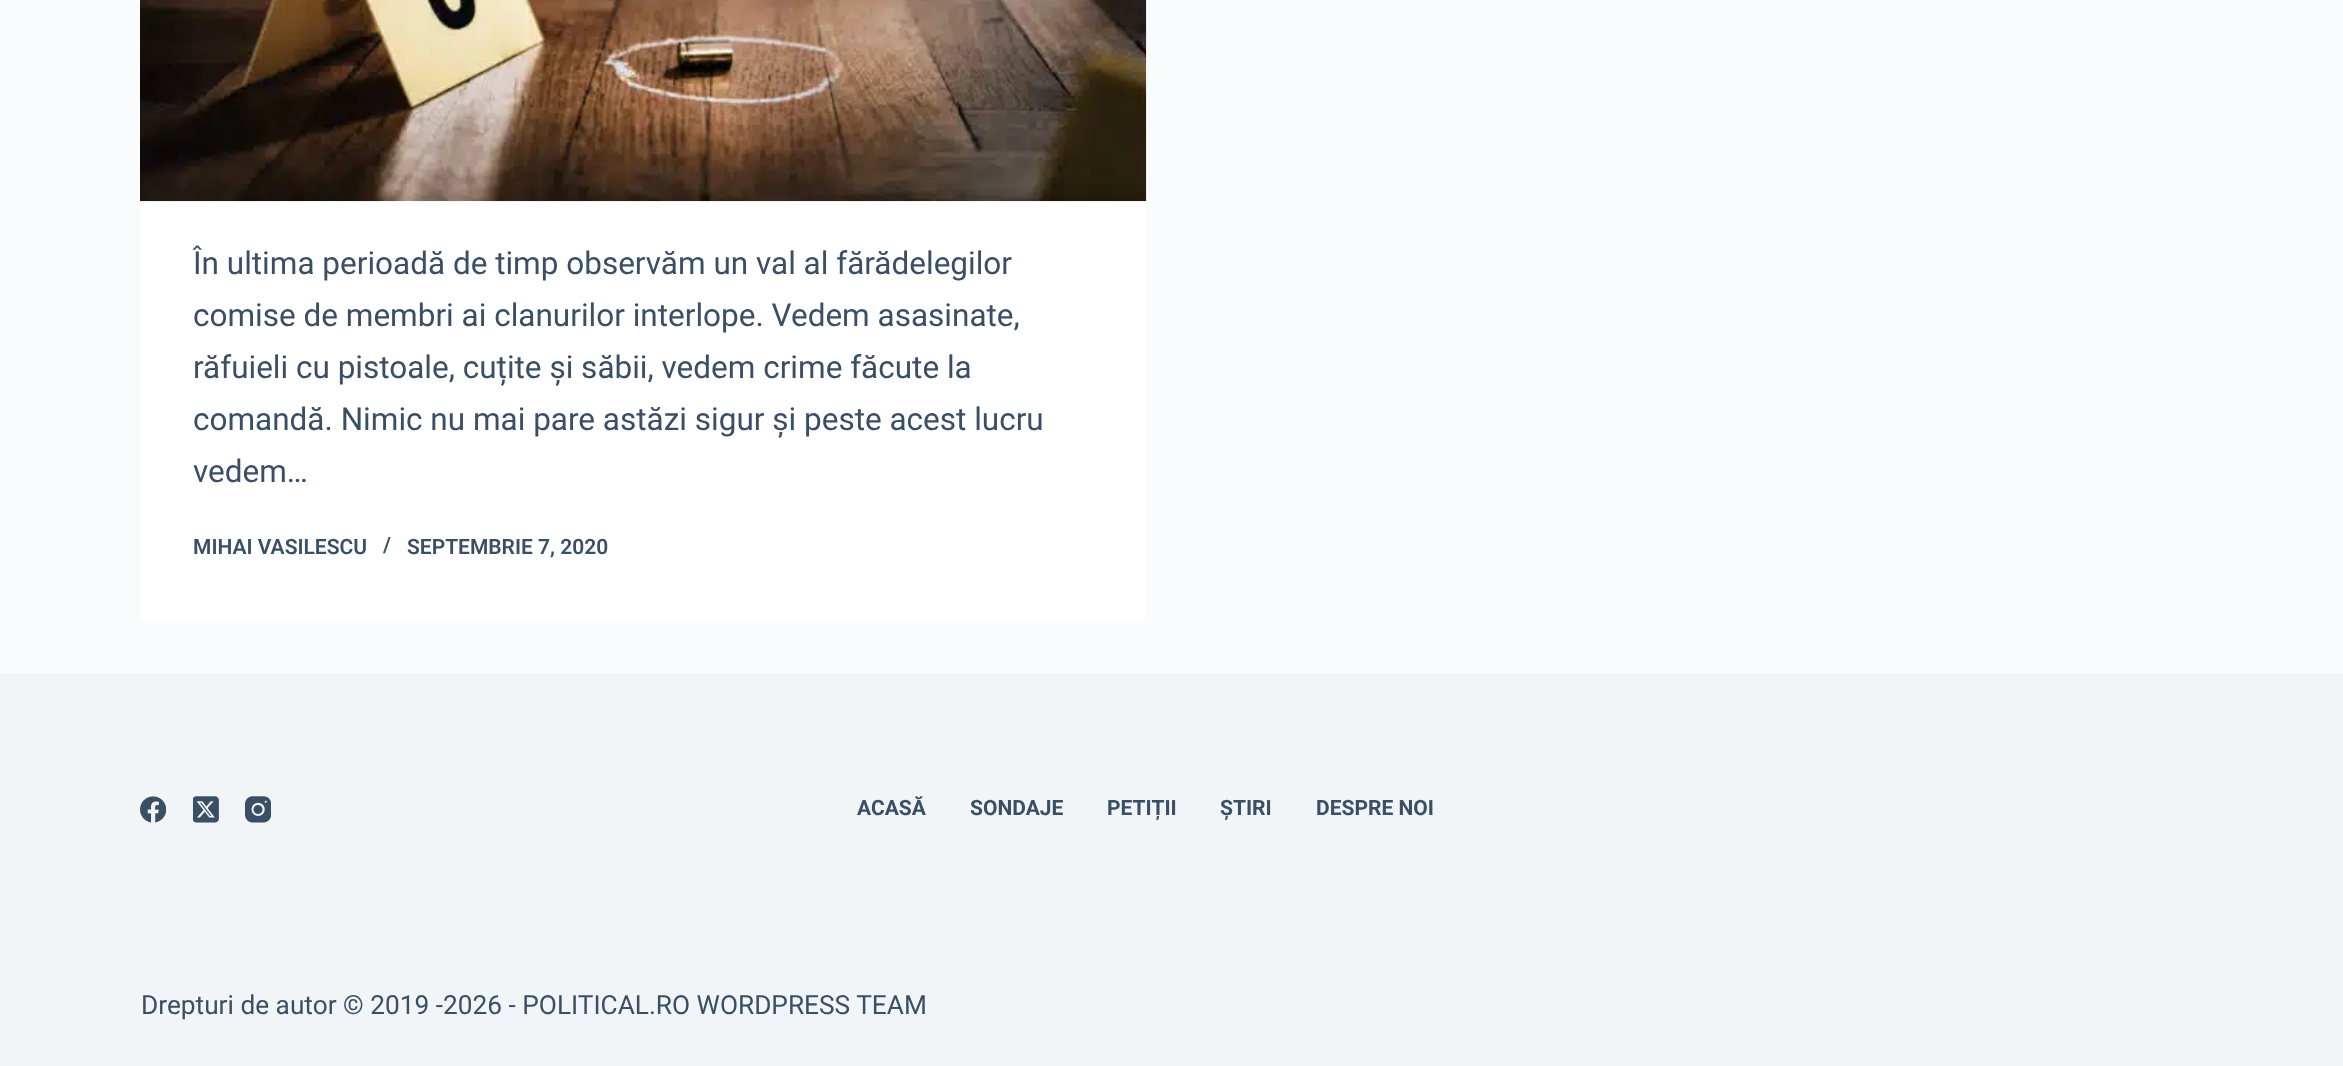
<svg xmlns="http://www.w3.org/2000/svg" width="2343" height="1066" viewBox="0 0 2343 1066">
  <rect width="100%" height="100%" fill="#fafbfc"/>
  <rect x="140" y="201" width="1006" height="419" fill="#ffffff"/>
  <image x="140" y="0" width="1007" height="202" href="img1.png"/>
  <text x="193" y="274" font-family="Roboto" font-size="31.5" fill="#3a4f66">În ultima perioadă de timp observăm un val al fărădelegilor</text>
  <text x="193" y="326" font-family="Roboto" font-size="31.5" fill="#3a4f66">comise de membri ai clanurilor interlope. Vedem asasinate,</text>
  <text x="193" y="378" font-family="Roboto" font-size="31.5" fill="#3a4f66">răfuieli cu pistoale, cuțite și săbii, vedem crime făcute la</text>
  <text x="193" y="430" font-family="Roboto" font-size="31.5" fill="#3a4f66">comandă. Nimic nu mai pare astăzi sigur și peste acest lucru</text>
  <text x="193" y="482" font-family="Roboto" font-size="31.5" fill="#3a4f66">vedem…</text>
  <text x="193" y="554" font-family="Roboto" font-size="21" font-weight="600" fill="#3a4f66">MIHAI VASILESCU</text>
  <text x="383" y="552" font-family="Roboto" font-size="21" font-weight="600" fill="#3a4f66">/</text>
  <text x="407" y="554" font-family="Roboto" font-size="21" font-weight="600" fill="#3a4f66">SEPTEMBRIE 7, 2020</text>
  <rect x="0" y="674" width="2343" height="392" fill="#f2f5f7"/>
  <image x="140" y="796" width="26" height="27" href="img2.png"/>
  <image x="193" y="796" width="26" height="27" href="img3.png"/>
  <image x="245" y="796" width="26" height="27" href="img4.png"/>
  <text x="857" y="815" font-family="Roboto" font-size="21" font-weight="bold" fill="#3a4f66">ACASĂ</text>
  <text x="970" y="815" font-family="Roboto" font-size="21" font-weight="bold" fill="#3a4f66">SONDAJE</text>
  <text x="1107" y="815" font-family="Roboto" font-size="21" font-weight="bold" fill="#3a4f66">PETIȚII</text>
  <text x="1220" y="815" font-family="Roboto" font-size="21" font-weight="bold" fill="#3a4f66">ȘTIRI</text>
  <text x="1316" y="815" font-family="Roboto" font-size="21" font-weight="bold" fill="#3a4f66">DESPRE NOI</text>
  <text x="141" y="1014" font-family="Roboto" font-size="26.25" fill="#3a4f66">Drepturi de autor © 2019 -2026 - POLITICAL.RO WORDPRESS TEAM</text>
</svg>
